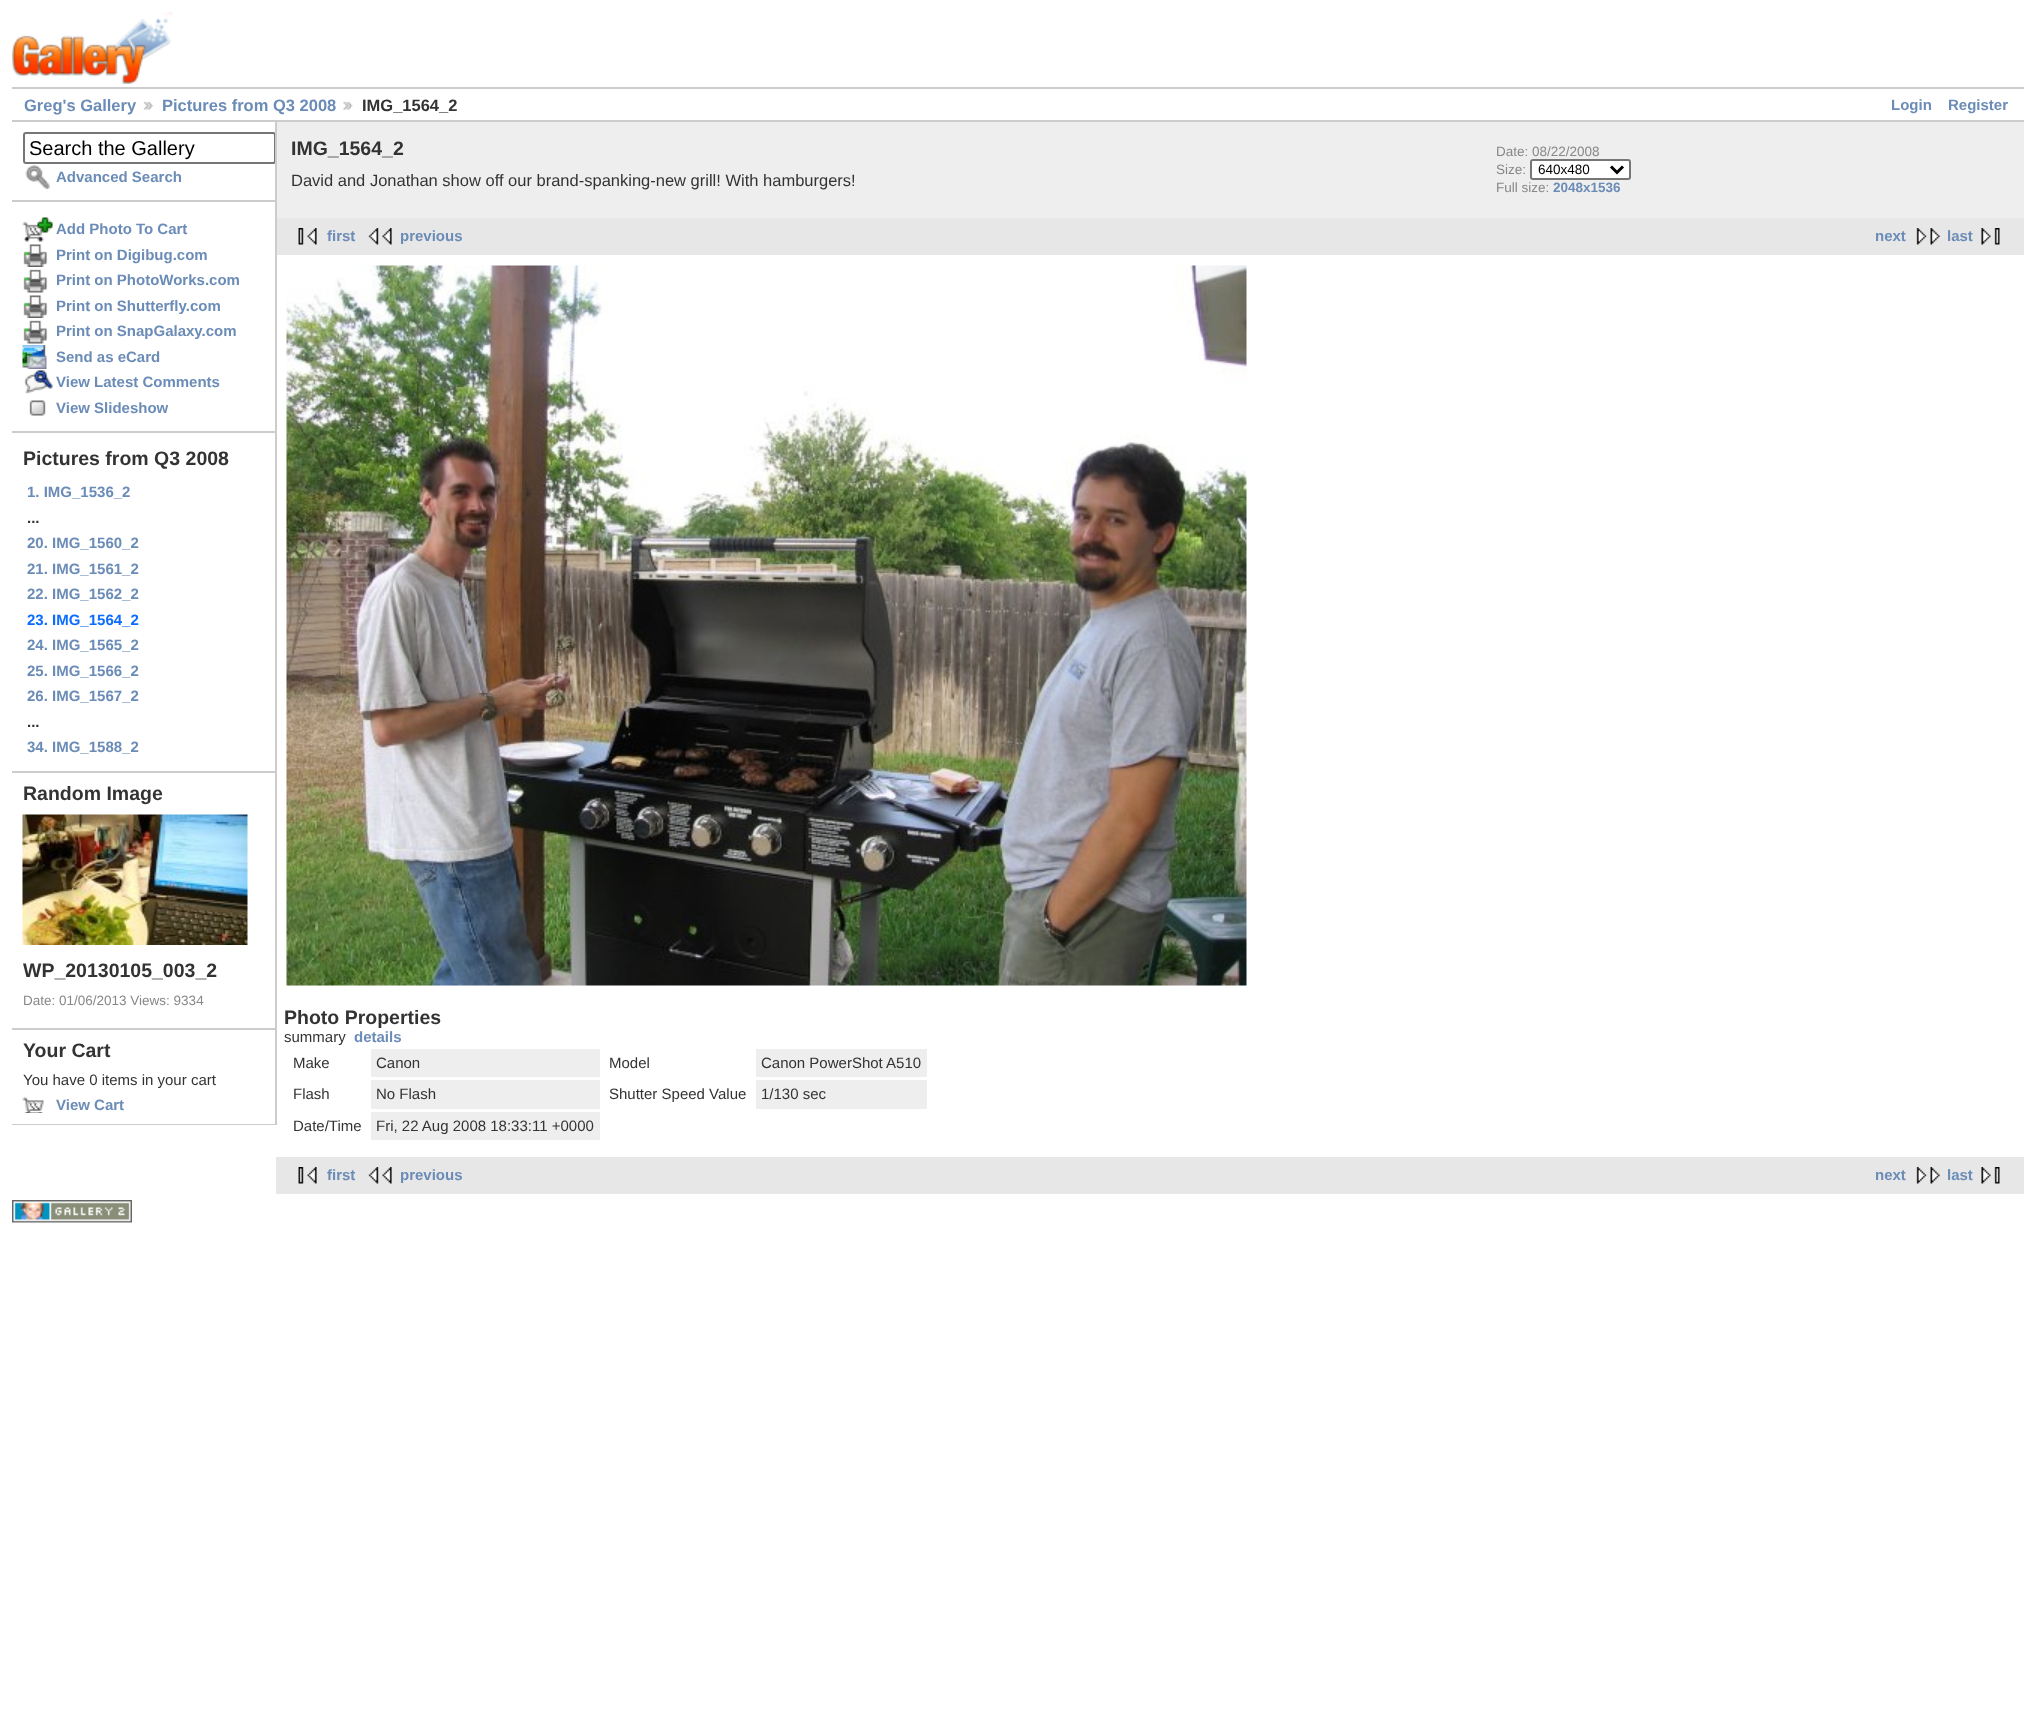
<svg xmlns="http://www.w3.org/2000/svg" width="2035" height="1729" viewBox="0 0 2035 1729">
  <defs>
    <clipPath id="clip1"><rect x="12" y="122" width="263" height="1003"/></clipPath>
  </defs>
  <rect width="100%" height="100%" fill="#ffffff"/>
  <image x="12" y="12" width="161" height="72" href="img1.png"/>
  <rect x="12" y="87" width="2012" height="2" fill="#cccccc"/>
  <rect x="12" y="120" width="2012" height="2" fill="#cccccc"/>
  <text x="24" y="111" font-family="Liberation Sans" font-size="16.5" font-weight="bold" fill="#6b8cb7">Greg's Gallery</text>
  <image x="143" y="101" width="11" height="9" href="img2.png"/>
  <text x="162" y="111" font-family="Liberation Sans" font-size="16.5" font-weight="bold" fill="#6b8cb7">Pictures from Q3 2008</text>
  <image x="343" y="101" width="10" height="9" href="img3.png"/>
  <text x="362" y="111" font-family="Liberation Sans" font-size="16.5" font-weight="bold" fill="#333333">IMG_1564_2</text>
  <text x="1891" y="110" font-family="Liberation Sans" font-size="15" font-weight="bold" fill="#6b8cb7">Login</text>
  <text x="1948" y="110" font-family="Liberation Sans" font-size="15" font-weight="bold" fill="#6b8cb7">Register</text>
  <rect x="275" y="122" width="2" height="1003" fill="#cccccc"/>
  <rect x="12" y="200" width="263" height="2" fill="#cccccc"/>
  <g clip-path="url(#clip1)">
    <rect x="24" y="133" width="251" height="30" rx="2" fill="none" stroke="#767676" stroke-width="2"/>
  </g>
  <text x="29" y="155" font-family="Liberation Sans" font-size="20" fill="#000000">Search the Gallery</text>
  <image x="25" y="165" width="25" height="24" href="img4.png"/>
  <text x="56" y="182" font-family="Liberation Sans" font-size="15" font-weight="bold" fill="#6b8cb7">Advanced Search</text>
  <rect x="12" y="431" width="263" height="2" fill="#cccccc"/>
  <image x="22" y="217" width="31" height="25" href="img5.png"/>
  <text x="56" y="234" font-family="Liberation Sans" font-size="15" font-weight="bold" fill="#6b8cb7">Add Photo To Cart</text>
  <image x="23" y="244" width="25" height="23" href="img6.png"/>
  <text x="56" y="260" font-family="Liberation Sans" font-size="15" font-weight="bold" fill="#6b8cb7">Print on Digibug.com</text>
  <image x="23" y="269" width="25" height="24" href="img7.png"/>
  <text x="56" y="285" font-family="Liberation Sans" font-size="15" font-weight="bold" fill="#6b8cb7">Print on PhotoWorks.com</text>
  <image x="23" y="295" width="25" height="23" href="img6.png"/>
  <text x="56" y="311" font-family="Liberation Sans" font-size="15" font-weight="bold" fill="#6b8cb7">Print on Shutterfly.com</text>
  <image x="23" y="320" width="25" height="24" href="img7.png"/>
  <text x="56" y="336" font-family="Liberation Sans" font-size="15" font-weight="bold" fill="#6b8cb7">Print on SnapGalaxy.com</text>
  <image x="22" y="345" width="25" height="24" href="img8.png"/>
  <text x="56" y="362" font-family="Liberation Sans" font-size="15" font-weight="bold" fill="#6b8cb7">Send as eCard</text>
  <image x="24" y="370" width="29" height="24" href="img9.png"/>
  <text x="56" y="387" font-family="Liberation Sans" font-size="15" font-weight="bold" fill="#6b8cb7">View Latest Comments</text>
  <image x="29" y="400" width="17" height="16" href="img10.png"/>
  <text x="56" y="413" font-family="Liberation Sans" font-size="15" font-weight="bold" fill="#6b8cb7">View Slideshow</text>
  <rect x="12" y="771" width="263" height="2" fill="#cccccc"/>
  <text x="23" y="465" font-family="Liberation Sans" font-size="19.5" font-weight="bold" fill="#333333">Pictures from Q3 2008</text>
  <text x="27" y="497" font-family="Liberation Sans" font-size="15" font-weight="bold" fill="#6b8cb7">1. IMG_1536_2</text>
  <text x="27" y="523" font-family="Liberation Sans" font-size="15" font-weight="bold" fill="#333333">...</text>
  <text x="27" y="548" font-family="Liberation Sans" font-size="15" font-weight="bold" fill="#6b8cb7">20. IMG_1560_2</text>
  <text x="27" y="574" font-family="Liberation Sans" font-size="15" font-weight="bold" fill="#6b8cb7">21. IMG_1561_2</text>
  <text x="27" y="599" font-family="Liberation Sans" font-size="15" font-weight="bold" fill="#6b8cb7">22. IMG_1562_2</text>
  <text x="27" y="625" font-family="Liberation Sans" font-size="15" font-weight="bold" fill="#0b6cff">23. IMG_1564_2</text>
  <text x="27" y="650" font-family="Liberation Sans" font-size="15" font-weight="bold" fill="#6b8cb7">24. IMG_1565_2</text>
  <text x="27" y="676" font-family="Liberation Sans" font-size="15" font-weight="bold" fill="#6b8cb7">25. IMG_1566_2</text>
  <text x="27" y="701" font-family="Liberation Sans" font-size="15" font-weight="bold" fill="#6b8cb7">26. IMG_1567_2</text>
  <text x="27" y="727" font-family="Liberation Sans" font-size="15" font-weight="bold" fill="#333333">...</text>
  <text x="27" y="752" font-family="Liberation Sans" font-size="15" font-weight="bold" fill="#6b8cb7">34. IMG_1588_2</text>
  <rect x="12" y="1028" width="263" height="2" fill="#cccccc"/>
  <text x="23" y="800" font-family="Liberation Sans" font-size="19.5" font-weight="bold" fill="#333333">Random Image</text>
  <image x="22" y="814" width="226" height="131" href="img11.png"/>
  <text x="23" y="977" font-family="Liberation Sans" font-size="19.5" font-weight="bold" fill="#333333">WP_20130105_003_2</text>
  <text x="23" y="1005" font-family="Liberation Sans" font-size="13.5" fill="#888888">Date: 01/06/2013 Views: 9334</text>
  <rect x="12" y="1124" width="263" height="1" fill="#cccccc"/>
  <text x="23" y="1057" font-family="Liberation Sans" font-size="19.5" font-weight="bold" fill="#333333">Your Cart</text>
  <text x="23" y="1085" font-family="Liberation Sans" font-size="15" fill="#333333">You have 0 items in your cart</text>
  <image x="22" y="1097" width="22" height="16" href="img12.png"/>
  <text x="56" y="1110" font-family="Liberation Sans" font-size="15" font-weight="bold" fill="#6b8cb7">View Cart</text>
  <rect x="277" y="122" width="1747" height="96" fill="#eeeeee"/>
  <text x="291" y="155" font-family="Liberation Sans" font-size="19.5" font-weight="bold" fill="#333333">IMG_1564_2</text>
  <text x="291" y="186" font-family="Liberation Sans" font-size="16.5" fill="#333333">David and Jonathan show off our brand-spanking-new grill! With hamburgers!</text>
  <text x="1496" y="156" font-family="Liberation Sans" font-size="13.5" fill="#888888">Date: 08/22/2008</text>
  <text x="1496" y="174" font-family="Liberation Sans" font-size="13.5" fill="#888888">Size:</text>
  <rect x="1531" y="160" width="99" height="19" rx="2" fill="#ffffff" stroke="#767676" stroke-width="2"/>
  <path d="M1611 166.5L1617 172.5L1623 166.5" fill="none" stroke="#000000" stroke-width="3"/>
  <text x="1538" y="174" font-family="Liberation Sans" font-size="13.5" fill="#000000">640x480</text>
  <text x="1496" y="192" font-family="Liberation Sans" font-size="13.5" fill="#888888">Full size:</text>
  <text x="1553" y="192" font-family="Liberation Sans" font-size="13.5" font-weight="bold" fill="#6b8cb7">2048x1536</text>
  <rect x="277" y="218" width="1747" height="37" fill="#e7e7e7"/>
  <image x="298" y="228" width="19" height="17" href="img13.png"/>
  <text x="327" y="241" font-family="Liberation Sans" font-size="15" font-weight="bold" fill="#6b8cb7">first</text>
  <image x="368" y="228" width="24" height="17" href="img14.png"/>
  <text x="400" y="241" font-family="Liberation Sans" font-size="15" font-weight="bold" fill="#6b8cb7">previous</text>
  <text x="1875" y="241" font-family="Liberation Sans" font-size="15" font-weight="bold" fill="#6b8cb7">next</text>
  <image x="1916" y="228" width="24" height="17" href="img15.png"/>
  <text x="1947" y="241" font-family="Liberation Sans" font-size="15" font-weight="bold" fill="#6b8cb7">last</text>
  <image x="1981" y="228" width="19" height="17" href="img16.png"/>
  <image x="286" y="265" width="961" height="721" href="img17.png"/>
  <text x="284" y="1024" font-family="Liberation Sans" font-size="19.5" font-weight="bold" fill="#333333">Photo Properties</text>
  <text x="284" y="1042" font-family="Liberation Sans" font-size="15" fill="#333333">summary</text>
  <text x="354" y="1042" font-family="Liberation Sans" font-size="15" font-weight="bold" fill="#6b8cb7">details</text>
  <text x="293" y="1068" font-family="Liberation Sans" font-size="15" fill="#333333">Make</text>
  <rect x="371" y="1049" width="229" height="28" fill="#eeeeee"/>
  <text x="376" y="1068" font-family="Liberation Sans" font-size="15" fill="#333333">Canon</text>
  <text x="609" y="1068" font-family="Liberation Sans" font-size="15" fill="#333333">Model</text>
  <rect x="756" y="1049" width="171" height="28" fill="#eeeeee"/>
  <text x="761" y="1068" font-family="Liberation Sans" font-size="15" fill="#333333">Canon PowerShot A510</text>
  <text x="293" y="1099" font-family="Liberation Sans" font-size="15" fill="#333333">Flash</text>
  <rect x="371" y="1080" width="229" height="29" fill="#eeeeee"/>
  <text x="376" y="1099" font-family="Liberation Sans" font-size="15" fill="#333333">No Flash</text>
  <text x="609" y="1099" font-family="Liberation Sans" font-size="15" fill="#333333">Shutter Speed Value</text>
  <rect x="756" y="1080" width="171" height="29" fill="#eeeeee"/>
  <text x="761" y="1099" font-family="Liberation Sans" font-size="15" fill="#333333">1/130 sec</text>
  <text x="293" y="1131" font-family="Liberation Sans" font-size="15" fill="#333333">Date/Time</text>
  <rect x="371" y="1112" width="229" height="28" fill="#eeeeee"/>
  <text x="376" y="1131" font-family="Liberation Sans" font-size="15" fill="#333333">Fri, 22 Aug 2008 18:33:11 +0000</text>
  <rect x="276" y="1157" width="1748" height="37" fill="#e7e7e7"/>
  <image x="298" y="1167" width="19" height="17" href="img13.png"/>
  <text x="327" y="1180" font-family="Liberation Sans" font-size="15" font-weight="bold" fill="#6b8cb7">first</text>
  <image x="368" y="1167" width="24" height="17" href="img14.png"/>
  <text x="400" y="1180" font-family="Liberation Sans" font-size="15" font-weight="bold" fill="#6b8cb7">previous</text>
  <text x="1875" y="1180" font-family="Liberation Sans" font-size="15" font-weight="bold" fill="#6b8cb7">next</text>
  <image x="1916" y="1167" width="24" height="17" href="img15.png"/>
  <text x="1947" y="1180" font-family="Liberation Sans" font-size="15" font-weight="bold" fill="#6b8cb7">last</text>
  <image x="1981" y="1167" width="19" height="17" href="img16.png"/>
  <image x="12" y="1200" width="120" height="23" href="img18.png"/>
</svg>
